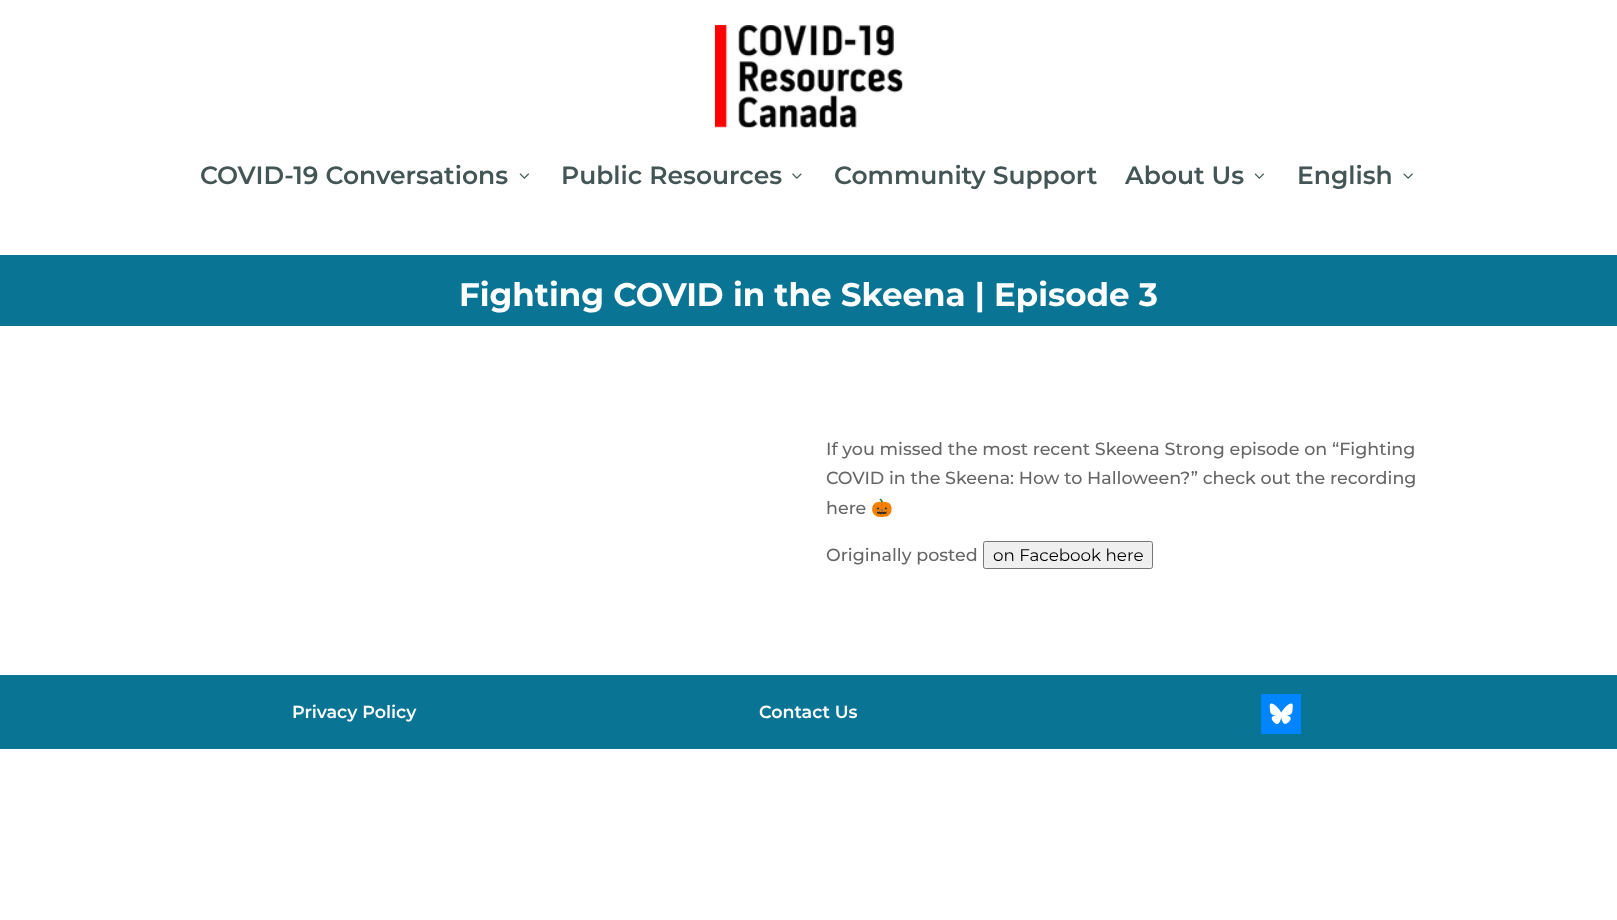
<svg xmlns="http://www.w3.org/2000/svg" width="1617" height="920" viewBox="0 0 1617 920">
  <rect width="100%" height="100%" fill="#ffffff"/>
  <image x="715" y="25" width="188" height="103" href="img1.png"/>
  <text x="200" y="184" font-family="'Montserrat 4'" font-size="25" font-weight="100" fill="#435554">COVID-19 Conversations</text>
  <image x="519" y="173" width="10" height="6" href="img2.png"/>
  <text x="561" y="184" font-family="'Montserrat 4'" font-size="25" font-weight="100" fill="#435554">Public Resources</text>
  <image x="792" y="173" width="10" height="6" href="img3.png"/>
  <text x="834" y="184" font-family="'Montserrat 4'" font-size="25" font-weight="100" fill="#435554">Community Support</text>
  <text x="1125" y="184" font-family="'Montserrat 4'" font-size="25" font-weight="100" fill="#435554">About Us</text>
  <image x="1254" y="173" width="10" height="6" href="img2.png"/>
  <text x="1297" y="184" font-family="'Montserrat 4'" font-size="25" font-weight="100" fill="#435554">English</text>
  <image x="1403" y="173" width="10" height="6" href="img4.png"/>
  <rect x="0" y="255" width="1617" height="71" fill="#0a7494"/>
  <text x="459" y="306" font-family="Montserrat" font-size="32.5" font-weight="100" fill="#ffffff">Fighting COVID in the Skeena | Episode 3</text>
  <text x="826" y="455" font-family="'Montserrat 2'" font-size="17.5" font-weight="100" fill="#666666">If you missed the most recent Skeena Strong episode on “Fighting</text>
  <text x="826" y="484" font-family="'Montserrat 2'" font-size="17.5" font-weight="100" fill="#666666">COVID in the Skeena: How to Halloween?” check out the recording</text>
  <text x="826" y="514" font-family="'Montserrat 2'" font-size="17.5" font-weight="100" fill="#666666">here</text>
  <text x="871" y="514" font-family="Noto Color Emoji" font-size="17.5" fill="#666666">🎃</text>
  <text x="826" y="561" font-family="'Montserrat 2'" font-size="17.5" font-weight="100" fill="#666666">Originally posted</text>
  <rect x="983.5" y="541.5" width="169" height="27" rx="2" fill="#efefef" stroke="#767676"/>
  <text x="993" y="561" font-family="'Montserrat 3'" font-size="16.75" font-weight="100" fill="#000000">on Facebook here</text>
  <rect x="0" y="675" width="1617" height="74" fill="#0a7494"/>
  <text x="292" y="718" font-family="'Montserrat 4'" font-size="17.5" font-weight="100" fill="#ffffff">Privacy Policy</text>
  <text x="759" y="718" font-family="'Montserrat 4'" font-size="17.5" font-weight="100" fill="#ffffff">Contact Us</text>
  <rect x="1261" y="694" width="40" height="40" fill="#0085ff"/>
  <image x="1269" y="703" width="24" height="21" href="img5.png"/>
</svg>
